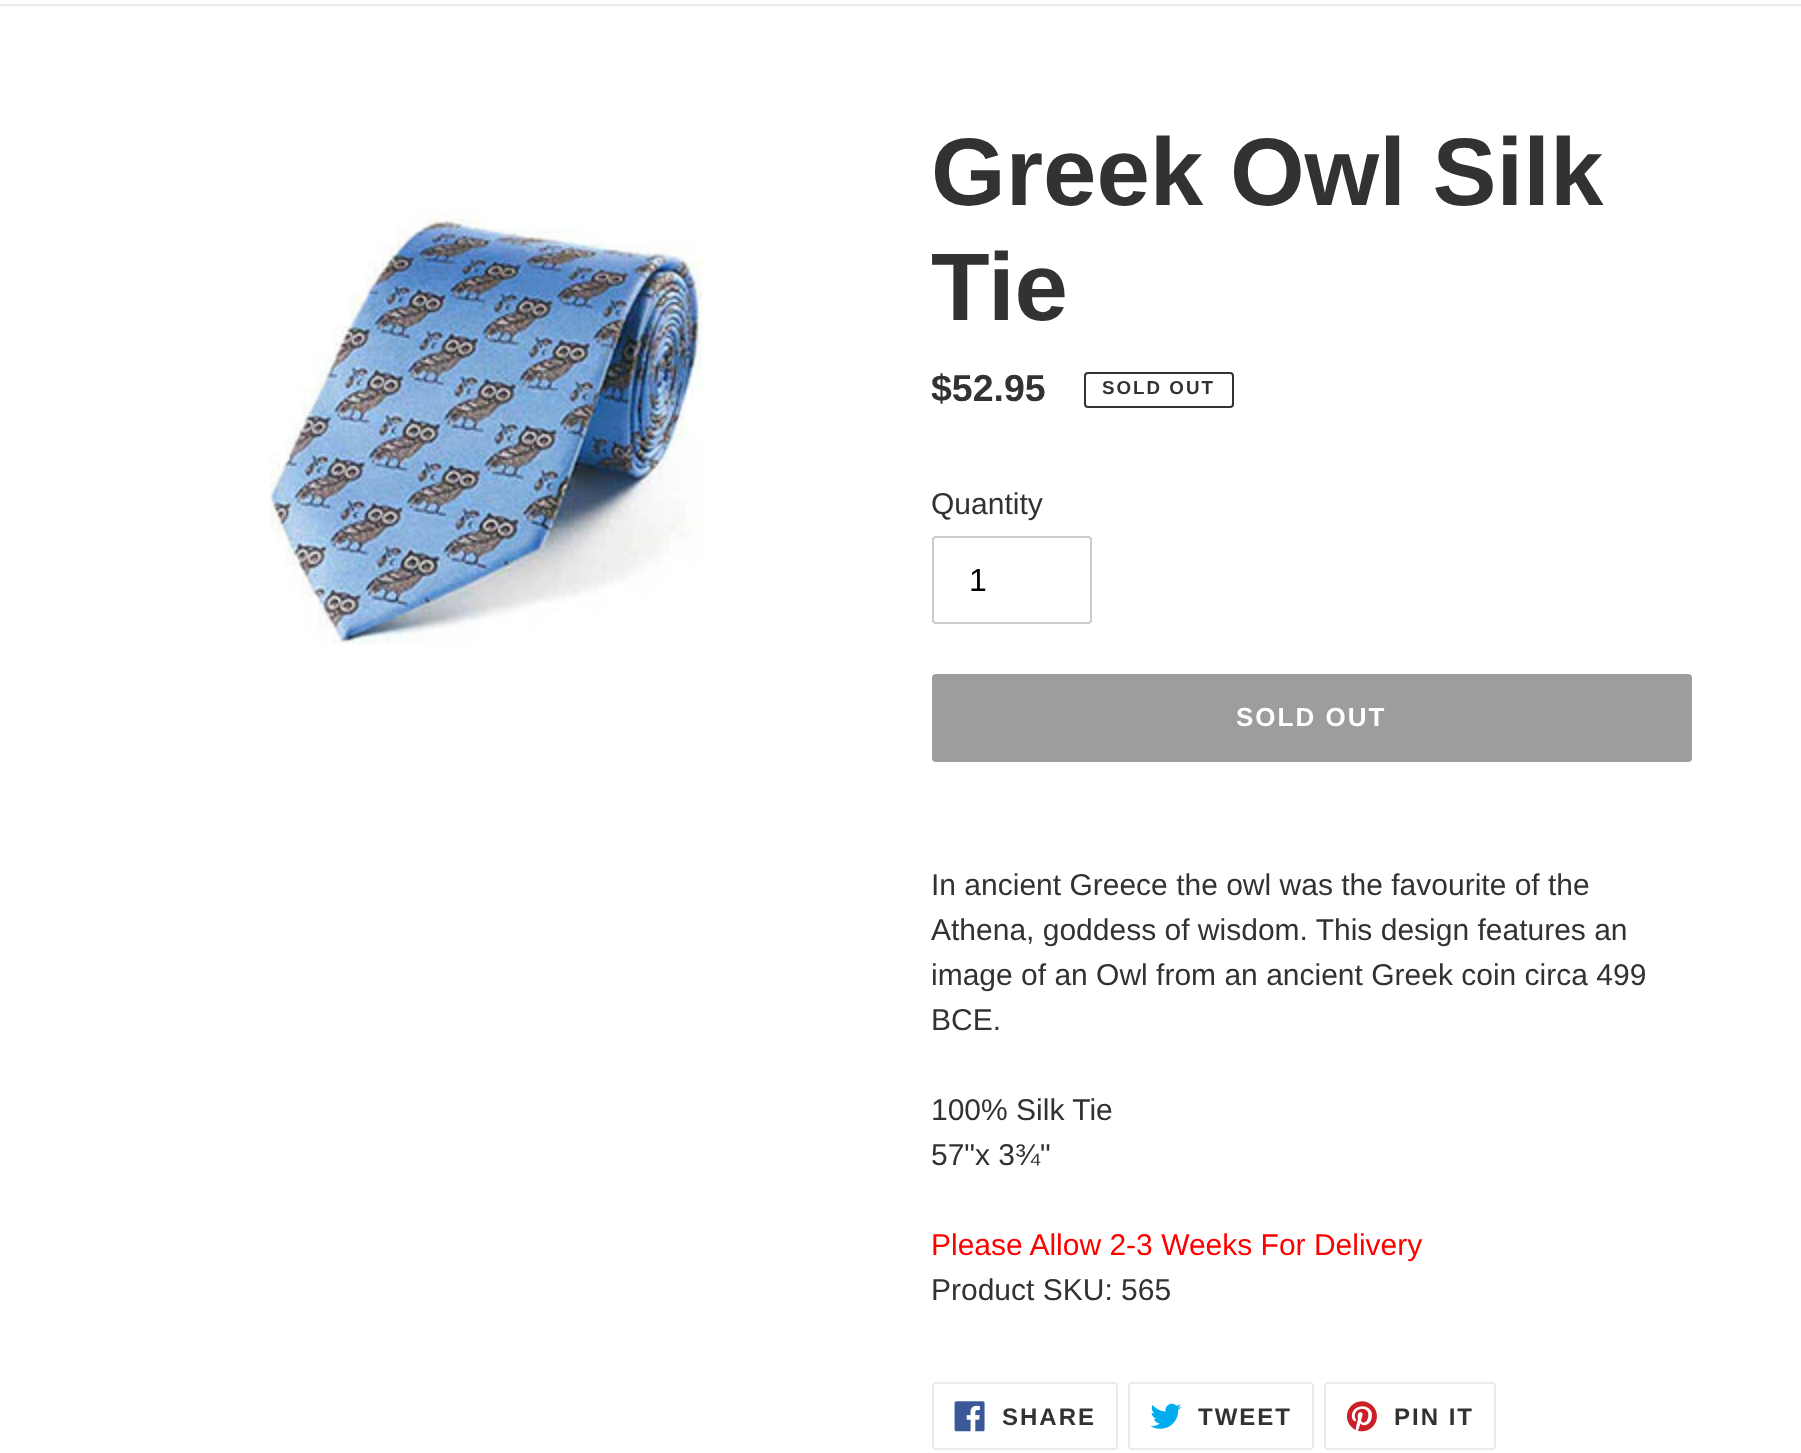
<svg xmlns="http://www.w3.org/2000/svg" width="1801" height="1453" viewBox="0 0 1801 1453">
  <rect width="100%" height="100%" fill="#ffffff"/>
  <rect x="0" y="4" width="1801" height="2" fill="#ebebeb"/>
  <image x="269" y="212" width="435" height="433" href="img1.png"/>
  <text x="931" y="205" font-family="Liberation Sans" font-size="96" font-weight="bold" fill="#333232">Greek Owl Silk</text>
  <text x="931" y="320" font-family="Liberation Sans" font-size="96" font-weight="bold" fill="#333232">Tie</text>
  <text x="931" y="401" font-family="Liberation Sans" font-size="37.5" font-weight="bold" fill="#333232">$52.95</text>
  <rect x="1085" y="373" width="148" height="34" rx="3" fill="none" stroke="#333232" stroke-width="2"/>
  <text x="1102" y="394" font-family="Liberation Sans" font-size="18.75" font-weight="bold" letter-spacing="2" fill="#333232">SOLD OUT</text>
  <text x="931" y="514" font-family="Liberation Sans" font-size="30" fill="#333232">Quantity</text>
  <rect x="933" y="537" width="158" height="86" rx="3" fill="none" stroke="#cccccc" stroke-width="2"/>
  <text x="969" y="591" font-family="Liberation Sans" font-size="32" fill="#000000">1</text>
  <rect x="932" y="674" width="760" height="88" rx="4" fill="#9d9d9d"/>
  <text x="1236" y="726" font-family="Liberation Sans" font-size="26" font-weight="bold" letter-spacing="2" fill="#ffffff">SOLD OUT</text>
  <text x="931" y="895" font-family="Liberation Sans" font-size="30" fill="#333232">In ancient Greece the owl was the favourite of the</text>
  <text x="931" y="940" font-family="Liberation Sans" font-size="30" fill="#333232">Athena, goddess of wisdom. This design features an</text>
  <text x="931" y="985" font-family="Liberation Sans" font-size="30" fill="#333232">image of an Owl from an ancient Greek coin circa 499</text>
  <text x="931" y="1030" font-family="Liberation Sans" font-size="30" fill="#333232">BCE.</text>
  <text x="931" y="1120" font-family="Liberation Sans" font-size="30" fill="#333232">100% Silk Tie</text>
  <text x="931" y="1165" font-family="Liberation Sans" font-size="30" fill="#333232">57"x 3¾"</text>
  <text x="931" y="1255" font-family="Liberation Sans" font-size="30" fill="#ff0000">Please Allow 2-3 Weeks For Delivery</text>
  <text x="931" y="1300" font-family="Liberation Sans" font-size="30" fill="#333232">Product SKU: 565</text>
  <rect x="933" y="1383" width="184" height="66" rx="3" fill="none" stroke="#ebebeb" stroke-width="2"/>
  <image x="954" y="1401" width="31" height="31" href="img2.png"/>
  <text x="1002" y="1425" font-family="Liberation Sans" font-size="24" font-weight="bold" letter-spacing="2" fill="#333232">SHARE</text>
  <rect x="1129" y="1383" width="184" height="66" rx="3" fill="none" stroke="#ebebeb" stroke-width="2"/>
  <image x="1150" y="1403" width="32" height="26" href="img3.png"/>
  <text x="1198" y="1425" font-family="Liberation Sans" font-size="24" font-weight="bold" letter-spacing="2" fill="#333232">TWEET</text>
  <rect x="1325" y="1383" width="170" height="66" rx="3" fill="none" stroke="#ebebeb" stroke-width="2"/>
  <image x="1346" y="1401" width="31" height="31" href="img4.png"/>
  <text x="1394" y="1425" font-family="Liberation Sans" font-size="24" font-weight="bold" letter-spacing="2" fill="#333232">PIN IT</text>
</svg>
